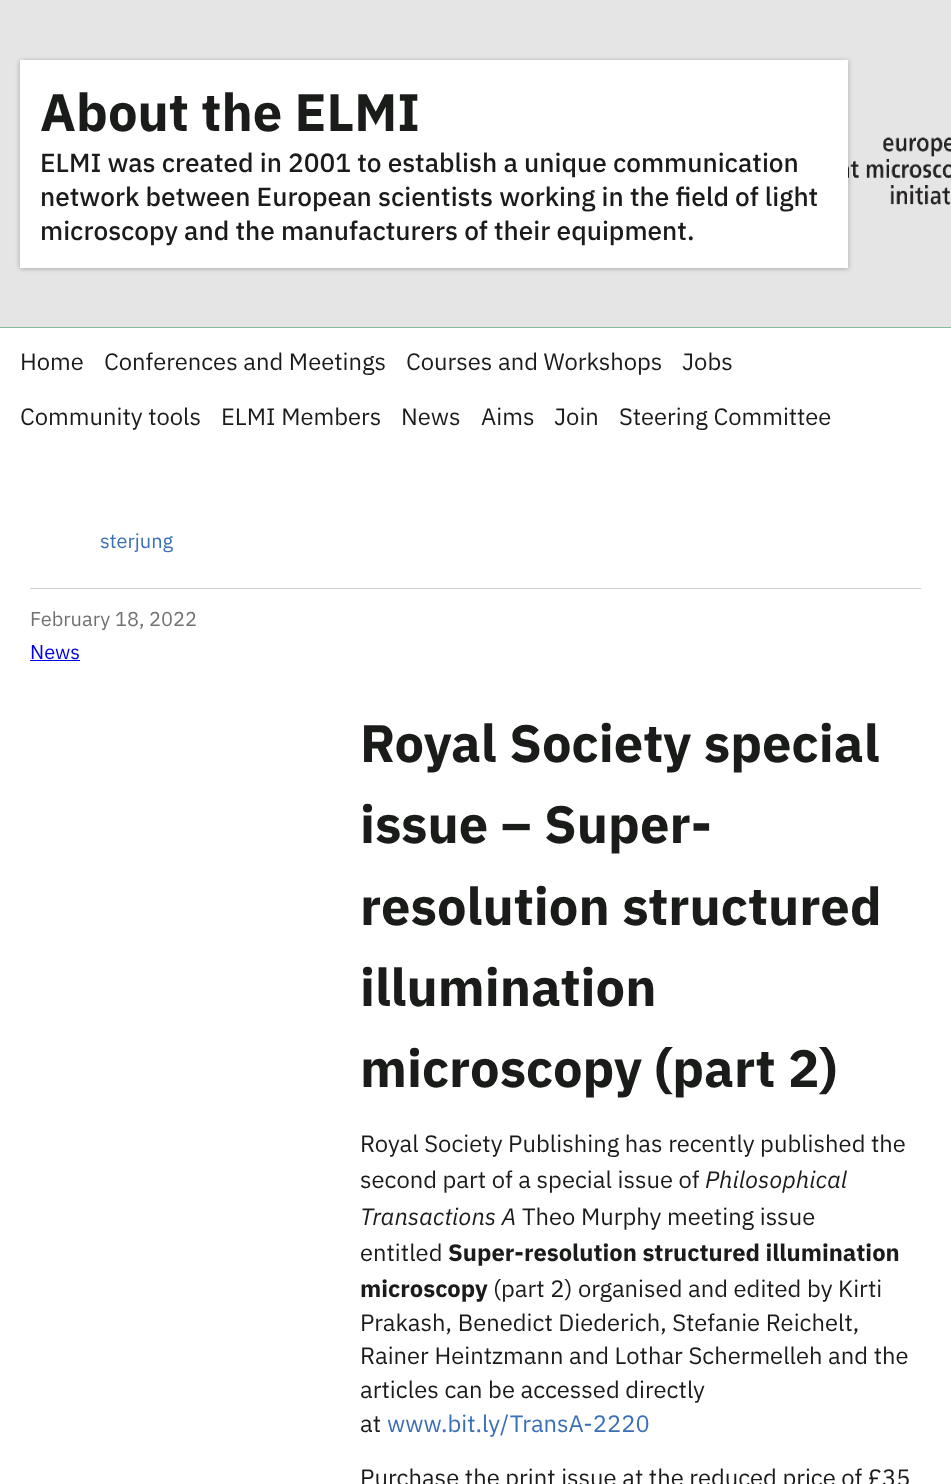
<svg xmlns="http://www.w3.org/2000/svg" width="951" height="1484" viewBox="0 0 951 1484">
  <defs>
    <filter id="blur1" x="-50%" y="-200%" width="200%" height="500%"><feGaussianBlur stdDeviation="2"/></filter>
  </defs>
  <rect width="100%" height="100%" fill="#ffffff"/>
  <rect x="0" y="327" width="951" height="1" fill="#18974c"/>
  <image x="0" y="0" width="951" height="328" href="img1.png"/>
  <rect x="20" y="63" width="828" height="207" fill="#000000" fill-opacity="0.1" filter="url(#blur1)"/>
  <rect x="18" y="60" width="827" height="208" fill="#000000" fill-opacity="0.1" filter="url(#blur1)"/>
  <rect x="23" y="60" width="827" height="208" fill="#000000" fill-opacity="0.1" filter="url(#blur1)"/>
  <rect x="20" y="60" width="828" height="208" fill="#ffffff"/>
  <text x="40" y="131" font-family="IBM Plex Sans" font-size="52.5" font-weight="bold" fill="#1a1c1a">About the ELMI</text>
  <text x="40" y="172" font-family="IBM Plex Sans" font-size="26.25" font-weight="500" fill="#1a1c1a">ELMI was created in 2001 to establish a unique communication</text>
  <text x="40" y="206" font-family="IBM Plex Sans" font-size="26.25" font-weight="500" fill="#1a1c1a">network between European scientists working in the field of light</text>
  <text x="40" y="240" font-family="IBM Plex Sans" font-size="26.25" font-weight="500" fill="#1a1c1a">microscopy and the manufacturers of their equipment.</text>
  <text x="20" y="370" font-family="IBM Plex Sans" font-size="23.75" fill="#1a1c1a">Home</text>
  <text x="104" y="370" font-family="IBM Plex Sans" font-size="23.75" fill="#1a1c1a">Conferences and Meetings</text>
  <text x="406" y="370" font-family="IBM Plex Sans" font-size="23.75" fill="#1a1c1a">Courses and Workshops</text>
  <text x="682" y="370" font-family="IBM Plex Sans" font-size="23.75" fill="#1a1c1a">Jobs</text>
  <text x="20" y="425" font-family="IBM Plex Sans" font-size="23.75" fill="#1a1c1a">Community tools</text>
  <text x="221" y="425" font-family="IBM Plex Sans" font-size="23.75" fill="#1a1c1a">ELMI Members</text>
  <text x="401" y="425" font-family="IBM Plex Sans" font-size="23.75" fill="#1a1c1a">News</text>
  <text x="481" y="425" font-family="IBM Plex Sans" font-size="23.75" fill="#1a1c1a">Aims</text>
  <text x="554" y="425" font-family="IBM Plex Sans" font-size="23.75" fill="#1a1c1a">Join</text>
  <text x="619" y="425" font-family="IBM Plex Sans" font-size="23.75" fill="#1a1c1a">Steering Committee</text>
  <text x="100" y="548" font-family="IBM Plex Sans" font-size="20" fill="#3b6fb6">sterjung</text>
  <rect x="30" y="588" width="891" height="1" fill="#d0d0ce"/>
  <text x="30" y="626" font-family="IBM Plex Sans" font-size="20" fill="#707372">February 18, 2022</text>
  <text x="30" y="659" font-family="IBM Plex Sans" font-size="20" fill="#0000ee">News</text>
  <rect x="30" y="660" width="50" height="1" fill="#0000ee"/>
  <text x="360" y="762" font-family="IBM Plex Sans" font-size="52.5" font-weight="bold" fill="#1a1c1a">Royal Society special</text>
  <text x="360" y="843" font-family="IBM Plex Sans" font-size="52.5" font-weight="bold" fill="#1a1c1a">issue – Super-</text>
  <text x="360" y="925" font-family="IBM Plex Sans" font-size="52.5" font-weight="bold" fill="#1a1c1a">resolution structured</text>
  <text x="360" y="1006" font-family="IBM Plex Sans" font-size="52.5" font-weight="bold" fill="#1a1c1a">illumination</text>
  <text x="360" y="1087" font-family="IBM Plex Sans" font-size="52.5" font-weight="bold" fill="#1a1c1a">microscopy (part 2)</text>
  <text x="360" y="1152" font-family="IBM Plex Sans" font-size="23.75" fill="#1a1c1a">Royal Society Publishing has recently published the</text>
  <text x="360" y="1188" font-family="IBM Plex Sans" font-size="23.75" fill="#1a1c1a">second part of a special issue of</text>
  <text x="705" y="1188" font-family="IBM Plex Sans" font-size="23.75" font-style="italic" fill="#1a1c1a">Philosophical</text>
  <text x="360" y="1225" font-family="IBM Plex Sans" font-size="23.75" font-style="italic" fill="#1a1c1a">Transactions A</text>
  <text x="522" y="1225" font-family="IBM Plex Sans" font-size="23.75" fill="#1a1c1a">Theo Murphy meeting issue</text>
  <text x="360" y="1261" font-family="IBM Plex Sans" font-size="23.75" fill="#1a1c1a">entitled</text>
  <text x="448" y="1261" font-family="IBM Plex Sans" font-size="23.75" font-weight="bold" fill="#1a1c1a">Super-resolution structured illumination</text>
  <text x="360" y="1297" font-family="IBM Plex Sans" font-size="23.75" font-weight="bold" fill="#1a1c1a">microscopy</text>
  <text x="493" y="1297" font-family="IBM Plex Sans" font-size="23.75" fill="#1a1c1a">(part 2) organised and edited by Kirti</text>
  <text x="360" y="1331" font-family="IBM Plex Sans" font-size="23.75" fill="#1a1c1a">Prakash, Benedict Diederich, Stefanie Reichelt,</text>
  <text x="360" y="1364" font-family="IBM Plex Sans" font-size="23.75" fill="#1a1c1a">Rainer Heintzmann and Lothar Schermelleh and the</text>
  <text x="360" y="1398" font-family="IBM Plex Sans" font-size="23.75" fill="#1a1c1a">articles can be accessed directly</text>
  <text x="360" y="1432" font-family="IBM Plex Sans" font-size="23.75" fill="#1a1c1a">at</text>
  <text x="387" y="1432" font-family="IBM Plex Sans" font-size="23.75" fill="#3b6fb6">www.bit.ly/TransA-2220</text>
  <text x="360" y="1486" font-family="IBM Plex Sans" font-size="23.75" fill="#1a1c1a">Purchase the print issue at the reduced price of £35</text>
</svg>
